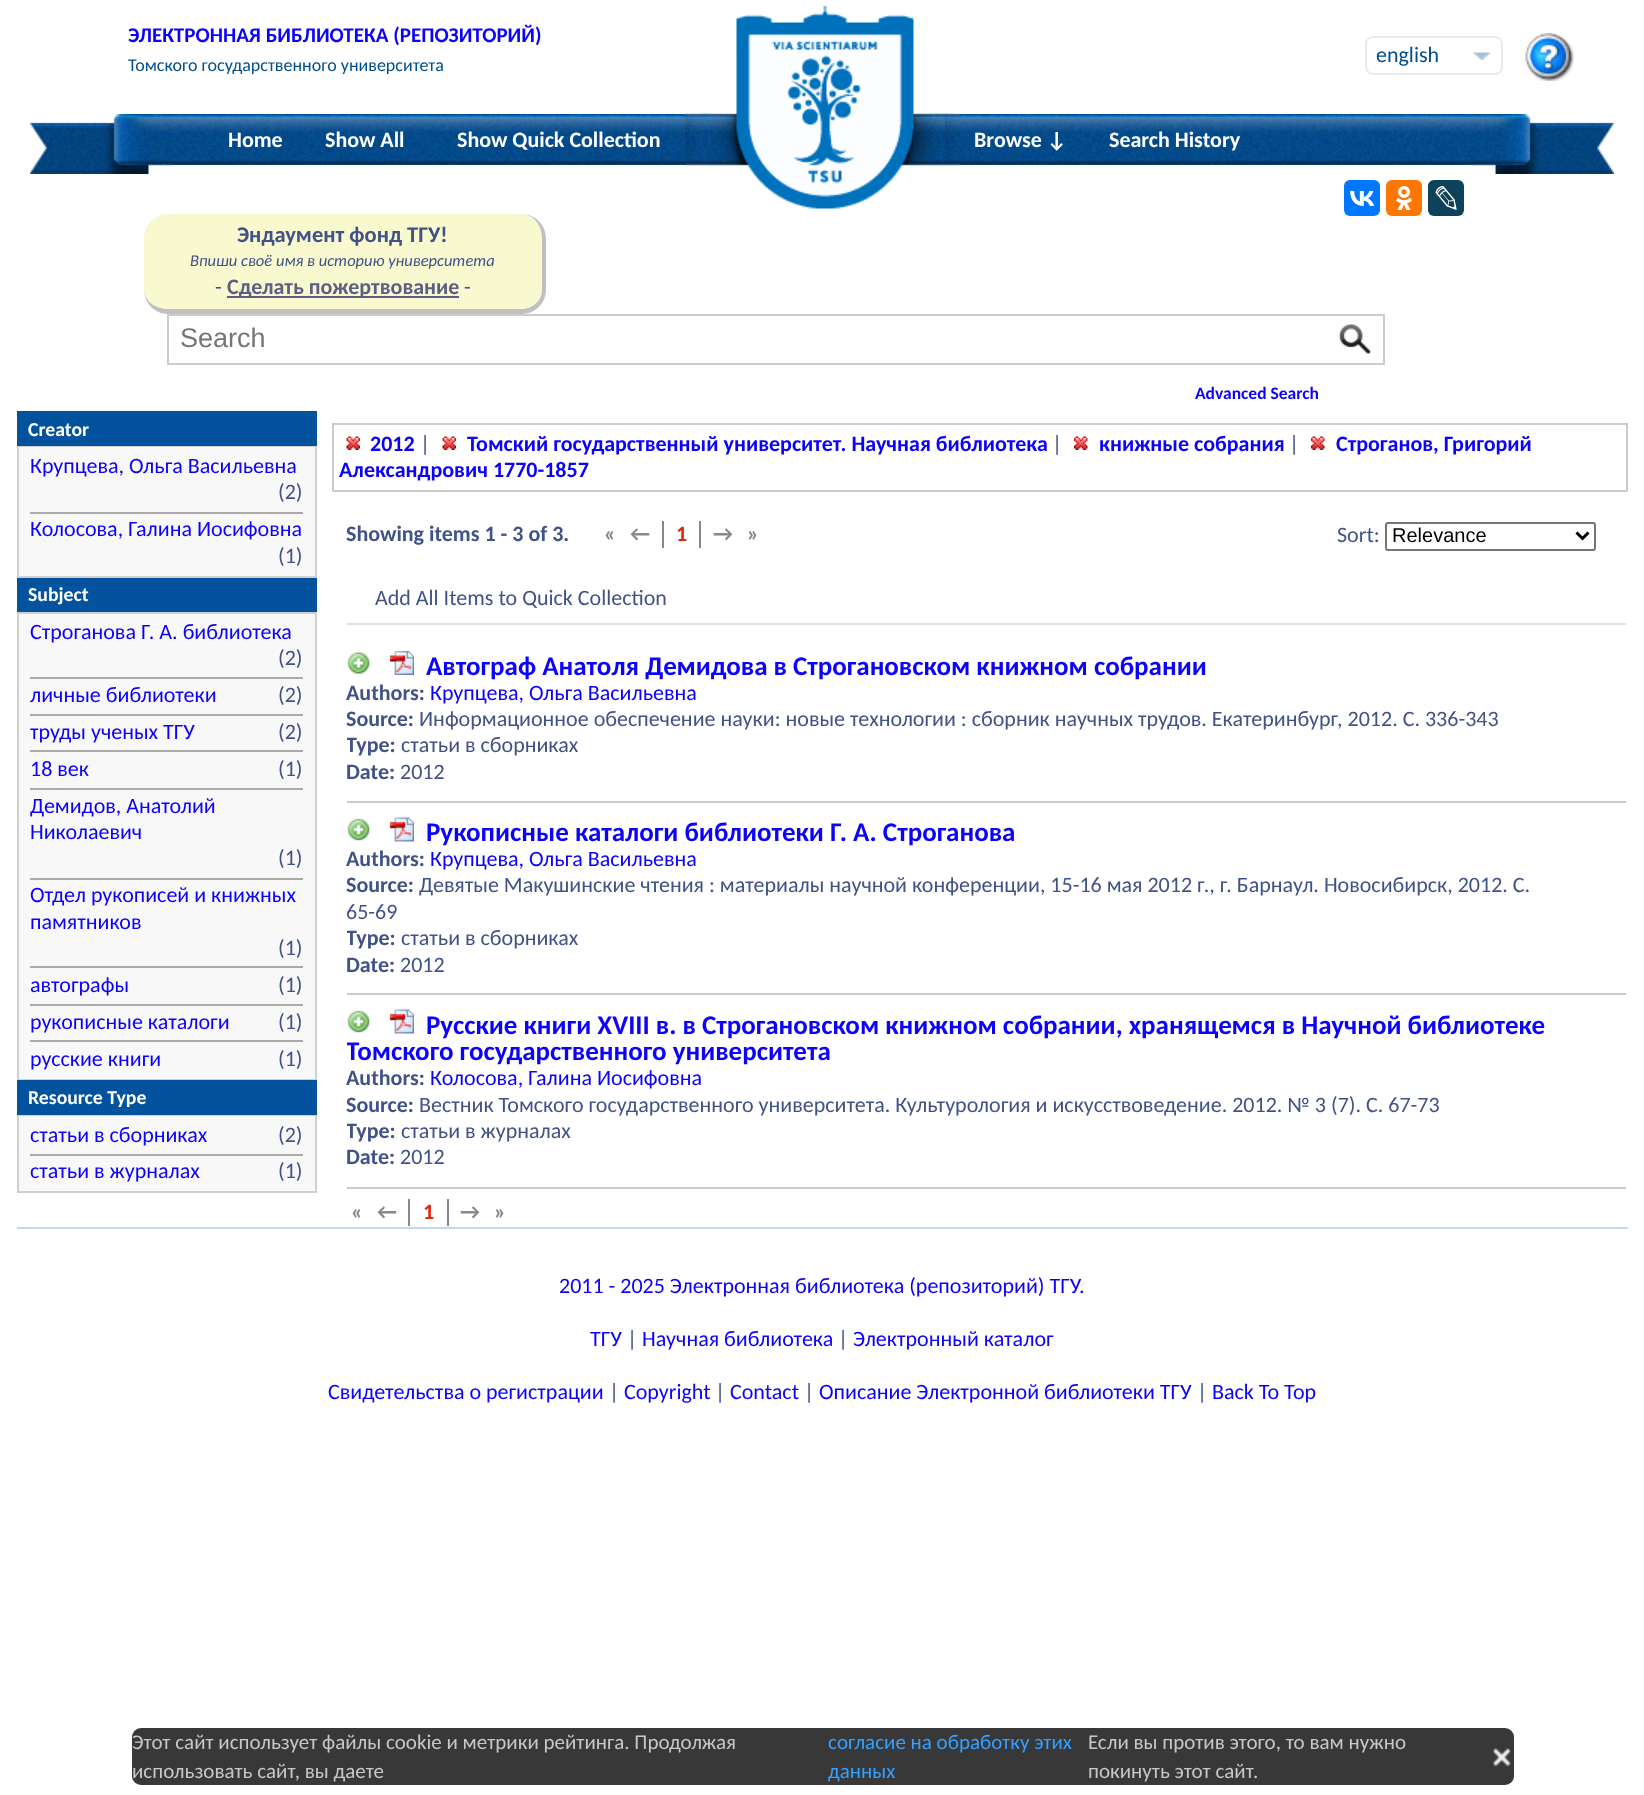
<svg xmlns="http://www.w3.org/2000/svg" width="1644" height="1795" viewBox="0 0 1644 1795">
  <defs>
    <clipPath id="clip1"><rect x="347" y="636" width="1279" height="165"/></clipPath>
    <clipPath id="clip2"><rect x="347" y="803" width="1279" height="190"/></clipPath>
    <clipPath id="clip3"><rect x="347" y="995" width="1279" height="192"/></clipPath>
  </defs>
  <rect width="100%" height="100%" fill="#ffffff"/>
  <text x="128" y="42" font-family="Carlito" font-size="21" font-weight="bold" fill="#0c00ff">ЭЛЕКТРОННАЯ БИБЛИОТЕКА (РЕПОЗИТОРИЙ)</text>
  <text x="128" y="71" font-family="Carlito" font-size="18" fill="#004e8b">Томского государственного университета</text>
  <rect x="1366" y="37" width="136" height="37" rx="7" fill="none" stroke="#ebe9e9" stroke-width="2"/>
  <image x="1473" y="52" width="18" height="8" href="img1.png"/>
  <text x="1376" y="62" font-family="Carlito" font-size="22" fill="#004e8b">english</text>
  <image x="1525" y="33" width="49" height="48" href="img2.png"/>
  <image x="172" y="114" width="1300" height="51" href="img4.png"/>
  <image x="30" y="114" width="143" height="60" href="img3.png"/>
  <text x="228" y="147" font-family="Carlito" font-size="22" font-weight="bold" fill="#ffffff">Home</text>
  <text x="325" y="147" font-family="Carlito" font-size="22" font-weight="bold" fill="#ffffff">Show All</text>
  <text x="457" y="147" font-family="Carlito" font-size="22" font-weight="bold" fill="#ffffff">Show Quick Collection</text>
  <image x="685" y="5" width="275" height="204" href="img5.png"/>
  <text x="974" y="147" font-family="Carlito" font-size="22" font-weight="bold" fill="#ffffff">Browse ↓</text>
  <text x="1109" y="147" font-family="Carlito" font-size="22" font-weight="bold" fill="#ffffff">Search History</text>
  <image x="1471" y="114" width="143" height="60" href="img6.png"/>
  <path d="M168 214H522C533 214 542 225 542 238V290C542 300 533 309 522 309H168C155 309 144 300 144 290V238C144 225 155 214 168 214Z" fill="#f9f9d0"/>
  <path d="M168 214H522C535 214 546 225 546 238V290C546 303 535 314 522 314H168C155 314 144 303 144 290V238C144 225 155 214 168 214ZM168 214H522C533 214 542 225 542 238V290C542 300 533 309 522 309H168C155 309 144 300 144 290V238C144 225 155 214 168 214Z" fill="#c0c0c0" fill-rule="evenodd"/>
  <text x="237" y="242" font-family="Carlito" font-size="22.5" font-weight="bold" fill="#405286">Эндаумент фонд ТГУ!</text>
  <text x="190" y="266" font-family="Carlito" font-size="16.5" font-style="italic" fill="#405286">Впиши своё имя в историю университета</text>
  <text x="215" y="294" font-family="Carlito" font-size="22" fill="#405286">-</text>
  <rect x="227" y="296" width="232" height="2" fill="#5d5d86"/>
  <text x="227" y="294" font-family="Carlito" font-size="22" font-weight="bold" fill="#5d5d86">Сделать пожертвование</text>
  <text x="464" y="294" font-family="Carlito" font-size="22" fill="#405286">-</text>
  <rect x="168" y="315" width="1216" height="49" fill="none" stroke="#cccccc" stroke-width="2"/>
  <text x="180" y="347" font-family="Liberation Sans" font-size="27" fill="#757575">Search</text>
  <image x="1338" y="323" width="33" height="31" href="img7.png"/>
  <text x="1195" y="399" font-family="Carlito" font-size="17.5" font-weight="bold" fill="#0c00ff">Advanced Search</text>
  <rect x="17" y="576" width="300" height="2" fill="#d0d0d0"/>
  <rect x="17" y="411" width="300" height="35" fill="#02529d"/>
  <rect x="17" y="446" width="300" height="1" fill="#d0d0d0"/>
  <text x="28" y="436" font-family="Carlito" font-size="19.75" font-weight="bold" fill="#ffffff">Creator</text>
  <rect x="19" y="447" width="296" height="129" fill="#f8f8f8"/>
  <rect x="315" y="447" width="2" height="129" fill="#d0d0d0"/>
  <rect x="17" y="447" width="2" height="129" fill="#d0d0d0"/>
  <text x="30" y="473" font-family="Carlito" font-size="22" fill="#0c00ff">Крупцева, Ольга Васильевна</text>
  <text x="278" y="499" font-family="Carlito" font-size="22" fill="#405286">(2)</text>
  <rect x="30" y="512" width="273" height="2" fill="#aaaaaa"/>
  <text x="30" y="536" font-family="Carlito" font-size="22" fill="#0c00ff">Колосова, Галина Иосифовна</text>
  <text x="278" y="563" font-family="Carlito" font-size="22" fill="#405286">(1)</text>
  <rect x="17" y="1079" width="300" height="1" fill="#d0d0d0"/>
  <rect x="17" y="578" width="300" height="34" fill="#02529d"/>
  <rect x="17" y="612" width="300" height="2" fill="#d0d0d0"/>
  <text x="28" y="601" font-family="Carlito" font-size="19.75" font-weight="bold" fill="#ffffff">Subject</text>
  <rect x="19" y="614" width="296" height="465" fill="#f8f8f8"/>
  <rect x="315" y="614" width="2" height="465" fill="#d0d0d0"/>
  <rect x="17" y="614" width="2" height="465" fill="#d0d0d0"/>
  <text x="30" y="639" font-family="Carlito" font-size="22" fill="#0c00ff">Строганова Г. А. библиотека</text>
  <text x="278" y="665" font-family="Carlito" font-size="22" fill="#405286">(2)</text>
  <rect x="30" y="677" width="273" height="2" fill="#aaaaaa"/>
  <text x="30" y="702" font-family="Carlito" font-size="22" fill="#0c00ff">личные библиотеки</text>
  <text x="278" y="702" font-family="Carlito" font-size="22" fill="#405286">(2)</text>
  <rect x="30" y="714" width="273" height="2" fill="#aaaaaa"/>
  <text x="30" y="739" font-family="Carlito" font-size="22" fill="#0c00ff">труды ученых ТГУ</text>
  <text x="278" y="739" font-family="Carlito" font-size="22" fill="#405286">(2)</text>
  <rect x="30" y="750" width="273" height="2" fill="#aaaaaa"/>
  <text x="30" y="776" font-family="Carlito" font-size="22" fill="#0c00ff">18 век</text>
  <text x="278" y="776" font-family="Carlito" font-size="22" fill="#405286">(1)</text>
  <rect x="30" y="788" width="273" height="2" fill="#aaaaaa"/>
  <text x="30" y="813" font-family="Carlito" font-size="22" fill="#0c00ff">Демидов, Анатолий</text>
  <text x="30" y="839" font-family="Carlito" font-size="22" fill="#0c00ff">Николаевич</text>
  <text x="278" y="865" font-family="Carlito" font-size="22" fill="#405286">(1)</text>
  <rect x="30" y="878" width="273" height="2" fill="#aaaaaa"/>
  <text x="30" y="902" font-family="Carlito" font-size="22" fill="#0c00ff">Отдел рукописей и книжных</text>
  <text x="30" y="929" font-family="Carlito" font-size="22" fill="#0c00ff">памятников</text>
  <text x="278" y="955" font-family="Carlito" font-size="22" fill="#405286">(1)</text>
  <rect x="30" y="966" width="273" height="2" fill="#aaaaaa"/>
  <text x="30" y="992" font-family="Carlito" font-size="22" fill="#0c00ff">автографы</text>
  <text x="278" y="992" font-family="Carlito" font-size="22" fill="#405286">(1)</text>
  <rect x="30" y="1004" width="273" height="2" fill="#aaaaaa"/>
  <text x="30" y="1029" font-family="Carlito" font-size="22" fill="#0c00ff">рукописные каталоги</text>
  <text x="278" y="1029" font-family="Carlito" font-size="22" fill="#405286">(1)</text>
  <rect x="30" y="1040" width="273" height="2" fill="#aaaaaa"/>
  <text x="30" y="1066" font-family="Carlito" font-size="22" fill="#0c00ff">русские книги</text>
  <text x="278" y="1066" font-family="Carlito" font-size="22" fill="#405286">(1)</text>
  <rect x="17" y="1191" width="300" height="2" fill="#d0d0d0"/>
  <rect x="17" y="1080" width="300" height="35" fill="#02529d"/>
  <rect x="17" y="1115" width="300" height="1" fill="#d0d0d0"/>
  <text x="28" y="1104" font-family="Carlito" font-size="19.75" font-weight="bold" fill="#ffffff">Resource Type</text>
  <rect x="19" y="1116" width="296" height="75" fill="#f8f8f8"/>
  <rect x="315" y="1116" width="2" height="75" fill="#d0d0d0"/>
  <rect x="17" y="1116" width="2" height="75" fill="#d0d0d0"/>
  <text x="30" y="1142" font-family="Carlito" font-size="22" fill="#0c00ff">статьи в сборниках</text>
  <text x="278" y="1142" font-family="Carlito" font-size="22" fill="#405286">(2)</text>
  <rect x="30" y="1154" width="273" height="2" fill="#aaaaaa"/>
  <text x="30" y="1178" font-family="Carlito" font-size="22" fill="#0c00ff">статьи в журналах</text>
  <text x="278" y="1178" font-family="Carlito" font-size="22" fill="#405286">(1)</text>
  <rect x="333" y="424" width="1294" height="67" fill="none" stroke="#cccccc" stroke-width="2"/>
  <image x="346" y="436" width="14" height="14" href="img8.png"/>
  <text x="370" y="451" font-family="Carlito" font-size="22" font-weight="bold" fill="#0c00ff">2012</text>
  <text x="420" y="451" font-family="Carlito" font-size="22" fill="#405286">|</text>
  <image x="442" y="436" width="14" height="14" href="img9.png"/>
  <text x="467" y="451" font-family="Carlito" font-size="22" font-weight="bold" fill="#0c00ff">Томский государственный университет. Научная библиотека</text>
  <text x="1052" y="451" font-family="Carlito" font-size="22" fill="#405286">|</text>
  <image x="1074" y="436" width="14" height="14" href="img10.png"/>
  <text x="1099" y="451" font-family="Carlito" font-size="22" font-weight="bold" fill="#0c00ff">книжные собрания</text>
  <text x="1289" y="451" font-family="Carlito" font-size="22" fill="#405286">|</text>
  <image x="1311" y="436" width="14" height="14" href="img11.png"/>
  <text x="1336" y="451" font-family="Carlito" font-size="22" font-weight="bold" fill="#0c00ff">Строганов, Григорий</text>
  <text x="339" y="477" font-family="Carlito" font-size="22" font-weight="bold" fill="#0c00ff">Александрович 1770-1857</text>
  <rect x="1344" y="180" width="36" height="36" rx="6" fill="#0077ff"/>
  <image x="1350" y="190" width="24" height="16" href="img12.png"/>
  <rect x="1386" y="180" width="36" height="36" rx="6" fill="#ff7700"/>
  <image x="1396" y="186" width="17" height="24" href="img13.png"/>
  <rect x="1428" y="180" width="36" height="36" rx="6" fill="#0d425a"/>
  <image x="1435" y="186" width="22" height="24" href="img14.png"/>
  <text x="346" y="541" font-family="Carlito" font-size="22" font-weight="bold" fill="#405286">Showing items 1 - 3 of 3.</text>
  <text x="604" y="541" font-family="Carlito" font-size="22" font-weight="bold" fill="#888888">«</text>
  <text x="630" y="541" font-family="Carlito" font-size="22" font-weight="bold" fill="#888888">←</text>
  <rect x="662" y="521" width="2" height="27" fill="#888888"/>
  <text x="676" y="541" font-family="Carlito" font-size="22" font-weight="bold" fill="#de290a">1</text>
  <text x="713" y="541" font-family="Carlito" font-size="22" font-weight="bold" fill="#888888">→</text>
  <rect x="699" y="521" width="2" height="27" fill="#888888"/>
  <text x="747" y="541" font-family="Carlito" font-size="22" font-weight="bold" fill="#888888">»</text>
  <text x="1337" y="542" font-family="Carlito" font-size="22" fill="#405286">Sort:</text>
  <rect x="1386" y="523" width="209" height="27" rx="2" fill="none" stroke="#767676" stroke-width="2"/>
  <path d="M1576.5 532.5L1582.5 538.5L1588.5 532.5" fill="none" stroke="#000000" stroke-width="3"/>
  <text x="1392" y="542" font-family="Liberation Sans" font-size="20" fill="#000000">Relevance</text>
  <text x="375" y="605" font-family="Carlito" font-size="22" fill="#405286">Add All Items to Quick Collection</text>
  <rect x="347" y="623" width="1279" height="2" fill="#e0e0e0"/>
  <rect x="347" y="801" width="1279" height="2" fill="#cccccc"/>
  <image x="347" y="652" width="23" height="22" href="img15.png"/>
  <image x="390" y="651" width="24" height="24" href="img16.png"/>
  <text x="426" y="675" font-family="Carlito" font-size="27" font-weight="bold" fill="#0c00ff">Автограф Анатоля Демидова в Строгановском книжном собрании</text>
  <text x="346" y="700" font-family="Carlito" font-size="22" font-weight="bold" fill="#405286">Authors:</text>
  <text x="430" y="700" font-family="Carlito" font-size="22" fill="#0c00ff">Крупцева, Ольга Васильевна</text>
  <text x="346" y="726" font-family="Carlito" font-size="22" font-weight="bold" fill="#405286">Source:</text>
  <text x="419" y="726" font-family="Carlito" font-size="22" fill="#405286">Информационное обеспечение науки: новые технологии : сборник научных трудов. Екатеринбург, 2012. С. 336-343</text>
  <g clip-path="url(#clip1)">
    <text x="346" y="752" font-family="Carlito" font-size="22" font-weight="bold" fill="#405286">Type:</text>
  </g>
  <text x="401" y="752" font-family="Carlito" font-size="22" fill="#405286">статьи в сборниках</text>
  <text x="346" y="779" font-family="Carlito" font-size="22" font-weight="bold" fill="#405286">Date:</text>
  <text x="400" y="779" font-family="Carlito" font-size="22" fill="#405286">2012</text>
  <rect x="347" y="993" width="1279" height="2" fill="#cccccc"/>
  <image x="347" y="818" width="23" height="23" href="img17.png"/>
  <image x="390" y="817" width="24" height="25" href="img18.png"/>
  <text x="426" y="841" font-family="Carlito" font-size="27" font-weight="bold" fill="#0c00ff">Рукописные каталоги библиотеки Г. А. Строганова</text>
  <text x="346" y="866" font-family="Carlito" font-size="22" font-weight="bold" fill="#405286">Authors:</text>
  <text x="430" y="866" font-family="Carlito" font-size="22" fill="#0c00ff">Крупцева, Ольга Васильевна</text>
  <text x="346" y="892" font-family="Carlito" font-size="22" font-weight="bold" fill="#405286">Source:</text>
  <text x="419" y="892" font-family="Carlito" font-size="22" fill="#405286">Девятые Макушинские чтения : материалы научной конференции, 15-16 мая 2012 г., г. Барнаул. Новосибирск, 2012. С.</text>
  <text x="346" y="919" font-family="Carlito" font-size="22" fill="#405286">65-69</text>
  <g clip-path="url(#clip2)">
    <text x="346" y="945" font-family="Carlito" font-size="22" font-weight="bold" fill="#405286">Type:</text>
  </g>
  <text x="401" y="945" font-family="Carlito" font-size="22" fill="#405286">статьи в сборниках</text>
  <text x="346" y="972" font-family="Carlito" font-size="22" font-weight="bold" fill="#405286">Date:</text>
  <text x="400" y="972" font-family="Carlito" font-size="22" fill="#405286">2012</text>
  <rect x="347" y="1187" width="1279" height="2" fill="#cccccc"/>
  <image x="347" y="1010" width="23" height="23" href="img17.png"/>
  <image x="390" y="1009" width="24" height="25" href="img18.png"/>
  <text x="426" y="1034" font-family="Carlito" font-size="27" font-weight="bold" fill="#0c00ff">Русские книги XVIII в. в Строгановском книжном собрании, хранящемся в Научной библиотеке</text>
  <g clip-path="url(#clip3)">
    <text x="346" y="1060" font-family="Carlito" font-size="27" font-weight="bold" fill="#0c00ff">Томского государственного университета</text>
  </g>
  <text x="346" y="1085" font-family="Carlito" font-size="22" font-weight="bold" fill="#405286">Authors:</text>
  <text x="430" y="1085" font-family="Carlito" font-size="22" fill="#0c00ff">Колосова, Галина Иосифовна</text>
  <text x="346" y="1112" font-family="Carlito" font-size="22" font-weight="bold" fill="#405286">Source:</text>
  <text x="419" y="1112" font-family="Carlito" font-size="22" fill="#405286">Вестник Томского государственного университета. Культурология и искусствоведение. 2012. № 3 (7). С. 67-73</text>
  <g clip-path="url(#clip3)">
    <text x="346" y="1138" font-family="Carlito" font-size="22" font-weight="bold" fill="#405286">Type:</text>
  </g>
  <text x="401" y="1138" font-family="Carlito" font-size="22" fill="#405286">статьи в журналах</text>
  <text x="346" y="1164" font-family="Carlito" font-size="22" font-weight="bold" fill="#405286">Date:</text>
  <text x="400" y="1164" font-family="Carlito" font-size="22" fill="#405286">2012</text>
  <text x="351" y="1219" font-family="Carlito" font-size="22" font-weight="bold" fill="#888888">«</text>
  <text x="377" y="1219" font-family="Carlito" font-size="22" font-weight="bold" fill="#888888">←</text>
  <rect x="408" y="1199" width="2" height="27" fill="#888888"/>
  <text x="423" y="1219" font-family="Carlito" font-size="22" font-weight="bold" fill="#de290a">1</text>
  <text x="460" y="1219" font-family="Carlito" font-size="22" font-weight="bold" fill="#888888">→</text>
  <rect x="447" y="1199" width="2" height="27" fill="#888888"/>
  <text x="494" y="1219" font-family="Carlito" font-size="22" font-weight="bold" fill="#888888">»</text>
  <rect x="17" y="1227" width="1611" height="2" fill="#c5d5f6"/>
  <text x="559" y="1293" font-family="Carlito" font-size="22" fill="#0c00ff">2011 - 2025 Электронная библиотека (репозиторий) ТГУ.</text>
  <text x="590" y="1346" font-family="Carlito" font-size="22" fill="#0c00ff">ТГУ</text>
  <text x="627" y="1346" font-family="Carlito" font-size="22" fill="#405286">|</text>
  <text x="642" y="1346" font-family="Carlito" font-size="22" fill="#0c00ff">Научная библиотека</text>
  <text x="838" y="1346" font-family="Carlito" font-size="22" fill="#405286">|</text>
  <text x="853" y="1346" font-family="Carlito" font-size="22" fill="#0c00ff">Электронный каталог</text>
  <text x="328" y="1399" font-family="Carlito" font-size="22" fill="#0c00ff">Свидетельства о регистрации</text>
  <text x="609" y="1399" font-family="Carlito" font-size="22" fill="#405286">|</text>
  <text x="624" y="1399" font-family="Carlito" font-size="22" fill="#0c00ff">Copyright</text>
  <text x="715" y="1399" font-family="Carlito" font-size="22" fill="#405286">|</text>
  <text x="730" y="1399" font-family="Carlito" font-size="22" fill="#0c00ff">Contact</text>
  <text x="804" y="1399" font-family="Carlito" font-size="22" fill="#405286">|</text>
  <text x="819" y="1399" font-family="Carlito" font-size="22" fill="#0c00ff">Описание Электронной библиотеки ТГУ</text>
  <text x="1197" y="1399" font-family="Carlito" font-size="22" fill="#405286">|</text>
  <text x="1212" y="1399" font-family="Carlito" font-size="22" fill="#0c00ff">Back To Top</text>
  <rect x="132" y="1728" width="1382" height="57" rx="9" fill="#383838"/>
  <text x="132" y="1749" font-family="Carlito" font-size="21" fill="#c7c7c7">Этот сайт использует файлы cookie и метрики рейтинга. Продолжая</text>
  <text x="828" y="1749" font-family="Carlito" font-size="21" fill="#34a0ff">согласие на обработку этих</text>
  <text x="828" y="1778" font-family="Carlito" font-size="21" fill="#34a0ff">данных</text>
  <text x="1088" y="1749" font-family="Carlito" font-size="21" fill="#c7c7c7">Если вы против этого, то вам нужно</text>
  <image x="1493" y="1748" width="18" height="19" href="img19.png"/>
  <text x="132" y="1778" font-family="Carlito" font-size="21" fill="#c7c7c7">использовать сайт, вы даете</text>
  <text x="1088" y="1778" font-family="Carlito" font-size="21" fill="#c7c7c7">покинуть этот сайт.</text>
</svg>
